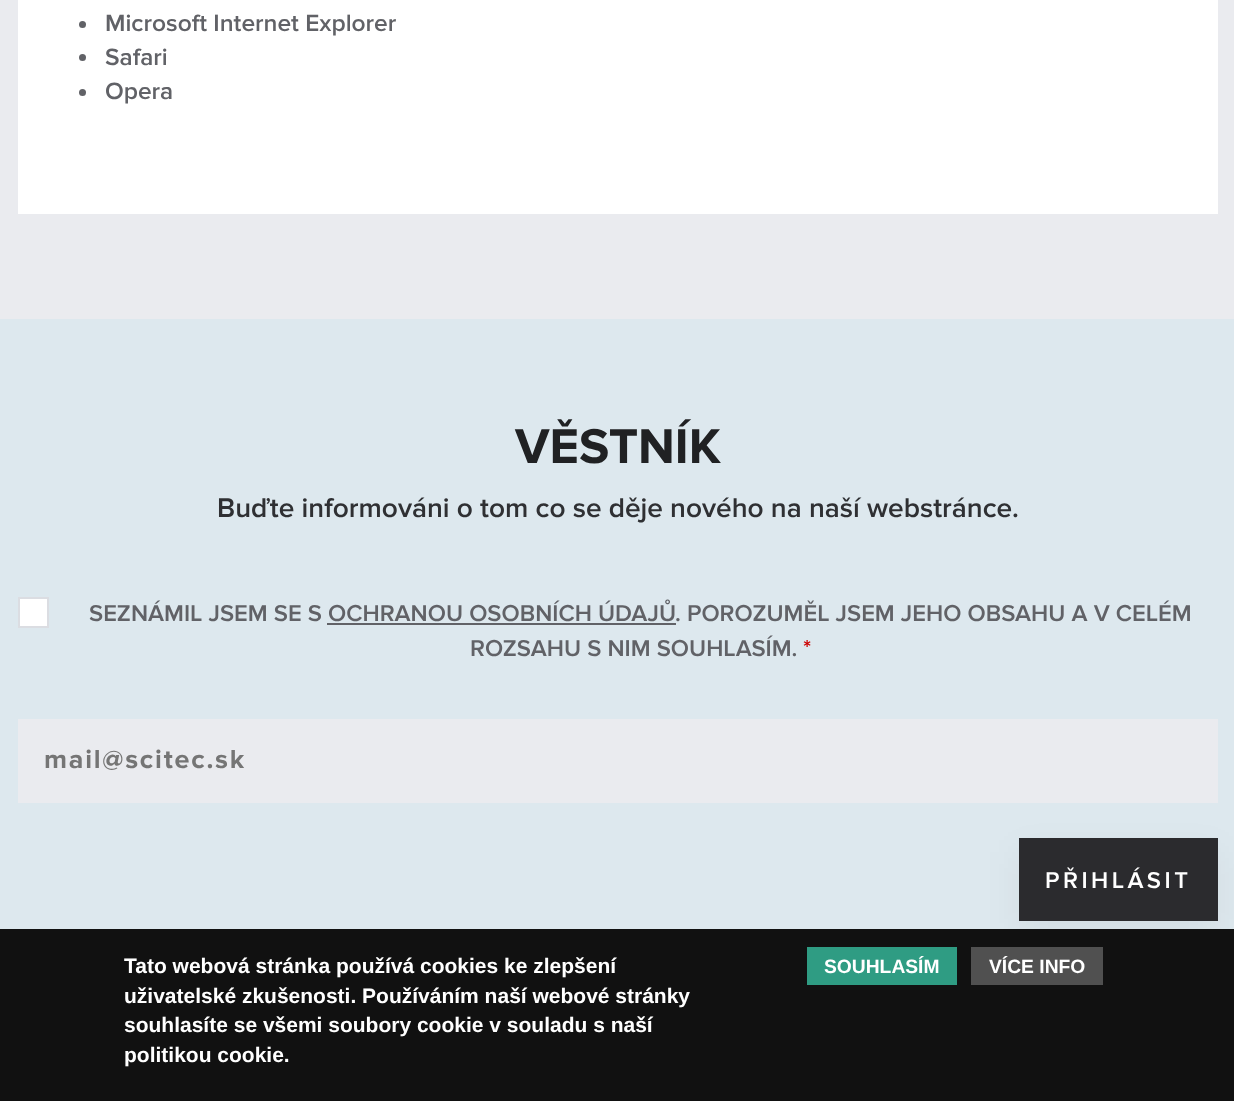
<svg xmlns="http://www.w3.org/2000/svg" width="1234" height="1101" viewBox="0 0 1234 1101">
  <defs>
    <filter id="blur1" x="-50%" y="-200%" width="200%" height="500%"><feGaussianBlur stdDeviation="17.5"/></filter>
  </defs>
  <rect width="100%" height="100%" fill="#eaebef"/>
  <rect x="18" y="0" width="1200" height="214" fill="#ffffff"/>
  <circle cx="82.5" cy="24.5" r="3.5" fill="#616267"/>
  <text x="105" y="31" font-family="Proxima Nova" font-size="24.5" font-weight="600" fill="#616267">Microsoft Internet Explorer</text>
  <circle cx="82.5" cy="57.5" r="3.5" fill="#616267"/>
  <text x="105" y="65" font-family="Proxima Nova" font-size="24.5" font-weight="600" fill="#616267">Safari</text>
  <circle cx="82.5" cy="92.5" r="3.5" fill="#616267"/>
  <text x="105" y="99" font-family="Proxima Nova" font-size="24.5" font-weight="600" fill="#616267">Opera</text>
  <rect x="0" y="319" width="1234" height="610" fill="#dde8ee"/>
  <text x="515" y="463" font-family="Proxima Nova" font-size="50.5" font-weight="bold" fill="#202123">VĚSTNÍK</text>
  <text x="217" y="517" font-family="Proxima Nova" font-size="28" font-weight="600" fill="#2f3033">Buďte informováni o tom co se děje nového na naší webstránce.</text>
  <rect x="19" y="598" width="29" height="29" fill="#ffffff" stroke="#dbdde2" stroke-width="2"/>
  <text x="89" y="621" font-family="Proxima Nova" font-size="23.8" font-weight="600" fill="#616267">SEZNÁMIL JSEM SE S</text>
  <text x="328" y="621" font-family="Proxima Nova" font-size="23.8" font-weight="600" fill="#616267">OCHRANOU OSOBNÍCH ÚDAJŮ</text>
  <rect x="327" y="623" width="349" height="2" fill="#616267"/>
  <text x="675" y="621" font-family="Proxima Nova" font-size="23.8" font-weight="600" fill="#616267">. POROZUMĚL JSEM JEHO OBSAHU A V CELÉM</text>
  <text x="470" y="656" font-family="Proxima Nova" font-size="23.8" font-weight="600" fill="#616267">ROZSAHU S NIM SOUHLASÍM.</text>
  <text x="803" y="656" font-family="Proxima Nova" font-size="23.8" font-weight="600" fill="#cc0000">*</text>
  <rect x="18" y="719" width="1200" height="84" fill="#eaebef"/>
  <text x="44" y="768" font-family="Proxima Nova" font-size="27" font-weight="bold" letter-spacing="1.75" fill="#757575">mail@scitec.sk</text>
  <rect x="1019" y="852" width="199" height="83" fill="#000000" fill-opacity="0.05" filter="url(#blur1)"/>
  <rect x="1019" y="838" width="199" height="83" fill="#2b2b2e"/>
  <text x="1045" y="888" font-family="Proxima Nova" font-size="23.8" font-weight="600" letter-spacing="3.5" fill="#ffffff">PŘIHLÁSIT</text>
  <rect x="0" y="929" width="1234" height="172" fill="#111111"/>
  <text x="124" y="973" font-family="Liberation Sans" font-size="21" font-weight="bold" fill="#ffffff">Tato webová stránka používá cookies ke zlepšení</text>
  <text x="124" y="1003" font-family="Liberation Sans" font-size="21" font-weight="bold" fill="#ffffff">uživatelské zkušenosti. Používáním naší webové stránky</text>
  <text x="124" y="1032" font-family="Liberation Sans" font-size="21" font-weight="bold" fill="#ffffff">souhlasíte se všemi soubory cookie v souladu s naší</text>
  <text x="124" y="1062" font-family="Liberation Sans" font-size="21" font-weight="bold" fill="#ffffff">politikou cookie.</text>
  <rect x="807" y="947" width="150" height="38" fill="#2f9c83"/>
  <text x="824" y="973" font-family="Liberation Sans" font-size="19.25" font-weight="bold" fill="#ffffff">SOUHLASÍM</text>
  <rect x="971" y="947" width="132" height="38" fill="#505050"/>
  <text x="989" y="973" font-family="Liberation Sans" font-size="19.25" font-weight="bold" fill="#ffffff">VÍCE INFO</text>
</svg>
